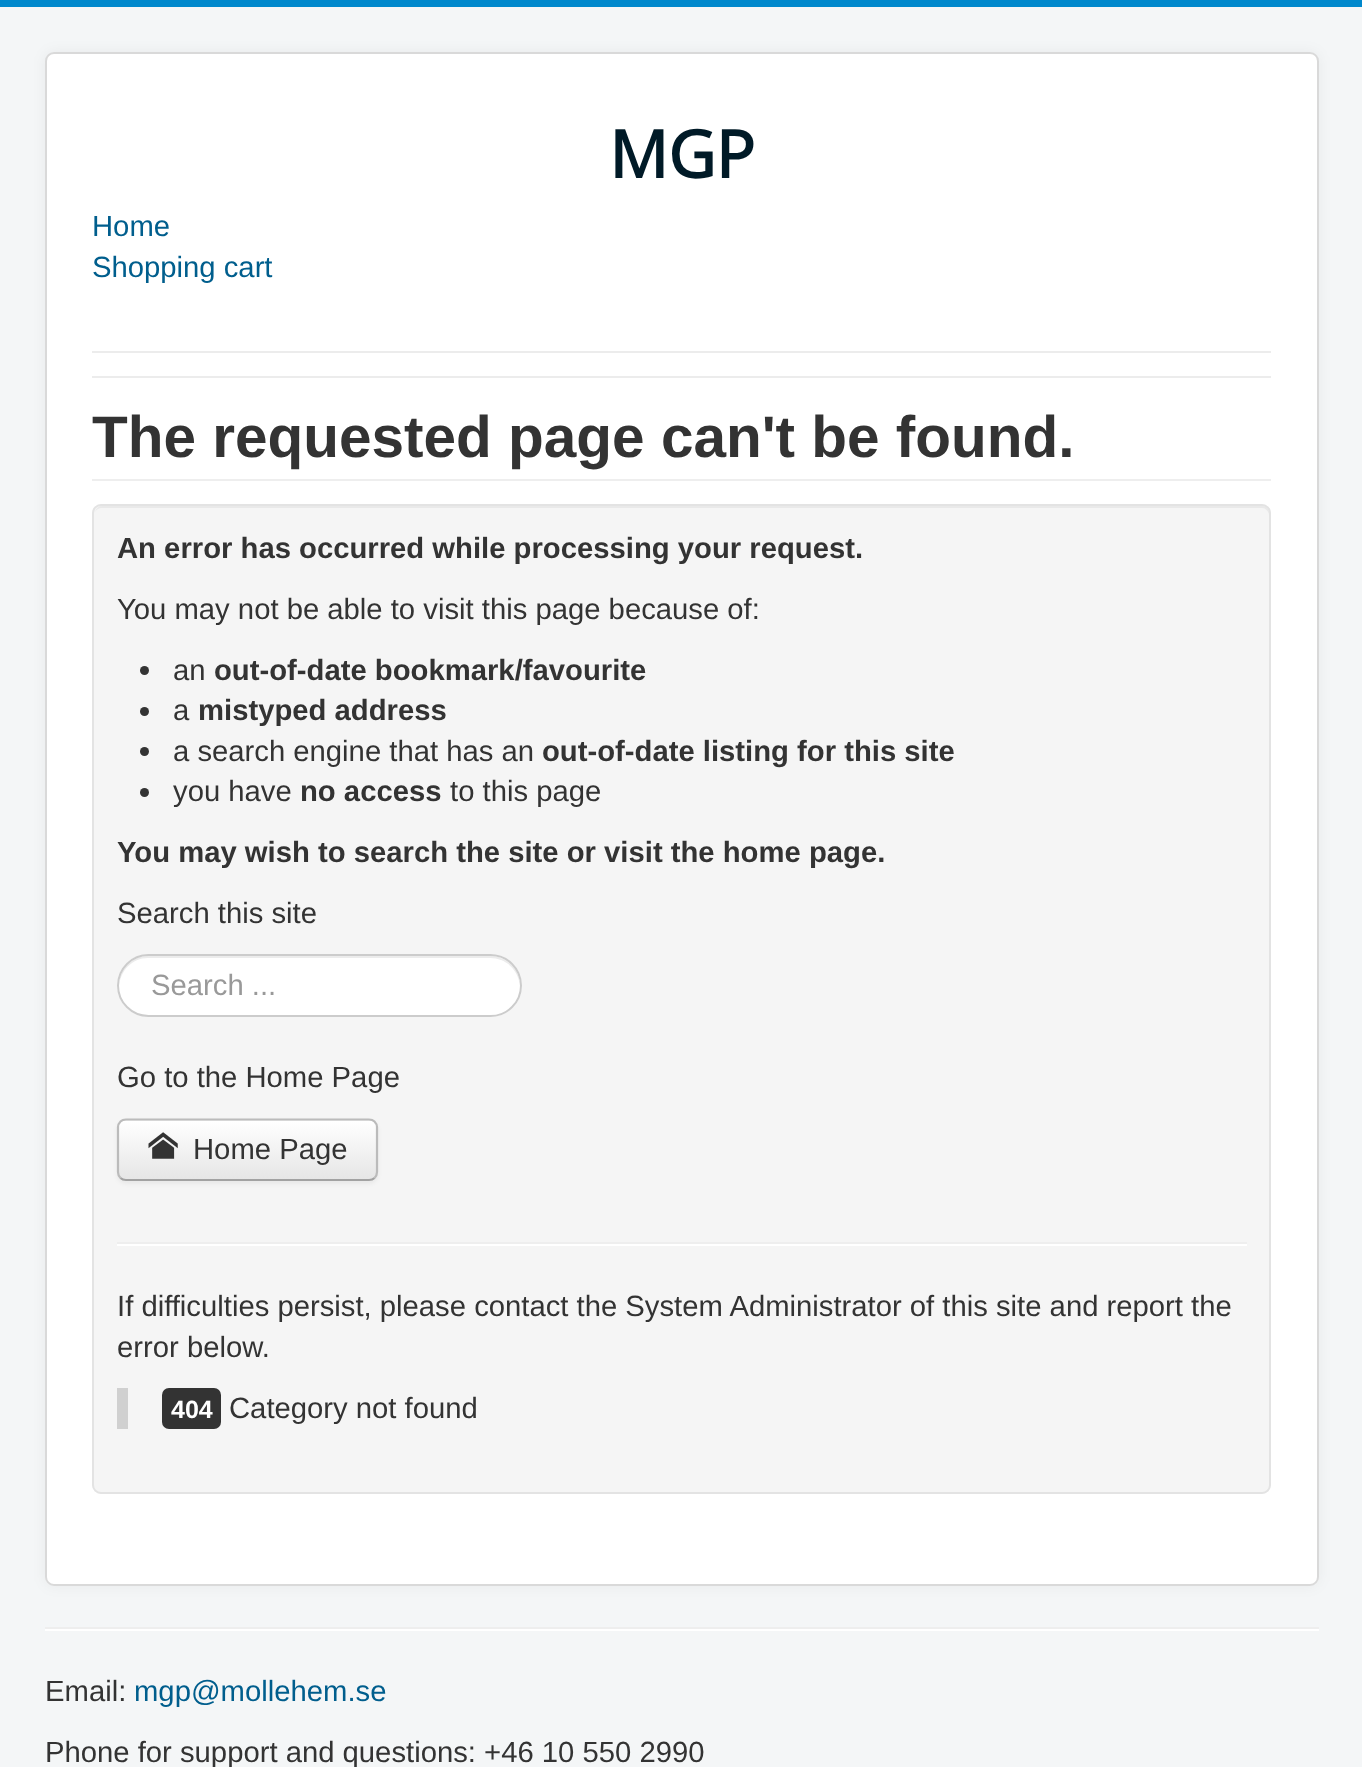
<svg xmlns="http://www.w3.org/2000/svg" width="1362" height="1767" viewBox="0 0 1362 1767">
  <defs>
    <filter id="blur1" x="-50%" y="-200%" width="200%" height="500%"><feGaussianBlur stdDeviation="7"/></filter>
    <filter id="blur2" x="-50%" y="-200%" width="200%" height="500%"><feGaussianBlur stdDeviation="2"/></filter>
    <clipPath id="clip1"><rect x="117" y="1118" width="261" height="63" rx="9"/></clipPath>
    <linearGradient id="g1" gradientUnits="userSpaceOnUse" x1="248" y1="1121" x2="248" y2="1179"><stop offset="0" stop-color="#ffffff"/><stop offset="1" stop-color="#e6e6e6"/></linearGradient>
  </defs>
  <rect width="100%" height="100%" fill="#f4f6f7"/>
  <rect x="0" y="0" width="1362" height="7" fill="#0088cc"/>
  <rect x="45" y="52" width="1274" height="1534" rx="9" fill="#000000" fill-opacity="0.05" filter="url(#blur1)"/>
  <rect x="45" y="52" width="1274" height="1534" rx="9" fill="#ffffff"/>
  <rect x="46" y="53" width="1272" height="1532" rx="8" fill="none" stroke="#000000" stroke-opacity="0.15" stroke-width="2"/>
  <text x="609" y="178" font-family="Open Sans" font-size="65.5" font-weight="bold" fill="#001a27">MGP</text>
  <text x="92" y="236" font-family="Liberation Sans" font-size="29.25" fill="#005e8d">Home</text>
  <text x="92" y="277" font-family="Liberation Sans" font-size="29.25" fill="#005e8d">Shopping cart</text>
  <rect x="92" y="351" width="1179" height="2" fill="#ececec"/>
  <rect x="92" y="376" width="1179" height="2" fill="#ececec"/>
  <rect x="92" y="479" width="1179" height="2" fill="#eeeeee"/>
  <text x="92" y="457" font-family="Liberation Sans" font-size="58.5" font-weight="bold" fill="#333333">The requested page can't be found.</text>
  <rect x="92" y="504" width="1179" height="990" rx="9" fill="#f5f5f5"/>
  <path d="M101 508H1262C1266 508 1269 512 1269 515V513C1269 509 1266 506 1262 506H102C98 506 96 509 95 512C96 510 99 508 101 508Z" fill="#e9e9e9"/>
  <rect x="93" y="505" width="1177" height="988" rx="8" fill="none" stroke="#e3e3e3" stroke-width="2"/>
  <text x="117" y="558" font-family="Liberation Sans" font-size="29.25" font-weight="bold" fill="#333333">An error has occurred while processing your request.</text>
  <text x="117" y="619" font-family="Liberation Sans" font-size="29.25" fill="#333333">You may not be able to visit this page because of:</text>
  <circle cx="144.5" cy="670.5" r="4.5" fill="#333333"/>
  <text x="173" y="680" font-family="Liberation Sans" font-size="29.25" fill="#333333">an</text>
  <text x="214" y="680" font-family="Liberation Sans" font-size="29.25" font-weight="bold" fill="#333333">out-of-date bookmark/favourite</text>
  <circle cx="144.5" cy="711.5" r="4.5" fill="#333333"/>
  <text x="173" y="720" font-family="Liberation Sans" font-size="29.25" fill="#333333">a</text>
  <text x="198" y="720" font-family="Liberation Sans" font-size="29.25" font-weight="bold" fill="#333333">mistyped address</text>
  <circle cx="144.5" cy="751.5" r="4.5" fill="#333333"/>
  <text x="173" y="761" font-family="Liberation Sans" font-size="29.25" fill="#333333">a search engine that has an</text>
  <text x="542" y="761" font-family="Liberation Sans" font-size="29.25" font-weight="bold" fill="#333333">out-of-date listing for this site</text>
  <circle cx="144.5" cy="792.5" r="4.5" fill="#333333"/>
  <text x="173" y="801" font-family="Liberation Sans" font-size="29.25" fill="#333333">you have</text>
  <text x="300" y="801" font-family="Liberation Sans" font-size="29.25" font-weight="bold" fill="#333333">no access</text>
  <text x="450" y="801" font-family="Liberation Sans" font-size="29.25" fill="#333333">to this page</text>
  <text x="117" y="862" font-family="Liberation Sans" font-size="29.25" font-weight="bold" fill="#333333">You may wish to search the site or visit the home page.</text>
  <text x="117" y="923" font-family="Liberation Sans" font-size="29.25" fill="#333333">Search this site</text>
  <rect x="117" y="954" width="405" height="63" rx="31.5" fill="#ffffff"/>
  <path d="M148 958H490C507 958 519 971 520 987V986C520 969 507 956 490 956H148C132 956 119 969 119 986V987C120 971 132 958 148 958Z" fill="#ececec"/>
  <rect x="118" y="955" width="403" height="61" rx="30.5" fill="none" stroke="#cccccc" stroke-width="2"/>
  <text x="151" y="995" font-family="Liberation Sans" font-size="29.25" fill="#999999">Search ...</text>
  <text x="117" y="1087" font-family="Liberation Sans" font-size="29.25" fill="#333333">Go to the Home Page</text>
  <rect x="117" y="1121" width="261" height="63" rx="9" fill="#000000" fill-opacity="0.05" filter="url(#blur2)"/>
  <g clip-path="url(#clip1)">
    <rect x="117" y="1121" width="261" height="58" fill="url(#g1)"/>
  </g>
  <path d="M374.5 1178C373 1179.5 371 1180 369 1180H126C124 1180 122 1179.5 120.5 1178" fill="none" stroke="#a2a2a2" stroke-width="2.2"/>
  <path d="M120.5 1178C119 1176.5 118 1174.5 118 1172V1127C118 1125 119 1123 120.5 1121.5C122 1120 124 1119.5 126 1119.5H369C371 1119.5 373 1120 374.5 1121.5C376 1123 377 1125 377 1127V1172C377 1174.5 376 1176.5 374.5 1178" fill="none" stroke="#bbbbbb" stroke-width="2.2"/>
  <image x="148" y="1132" width="30" height="27" href="img1.png"/>
  <text x="193" y="1159" font-family="Liberation Sans" font-size="29.25" fill="#333333">Home Page</text>
  <rect x="117" y="1242" width="1130" height="2" fill="#eeeeee"/>
  <rect x="117" y="1244" width="1130" height="2" fill="#ffffff"/>
  <text x="117" y="1316" font-family="Liberation Sans" font-size="29.25" fill="#333333">If difficulties persist, please contact the System Administrator of this site and report the</text>
  <text x="117" y="1357" font-family="Liberation Sans" font-size="29.25" fill="#333333">error below.</text>
  <rect x="117" y="1388" width="11" height="41" fill="#d0d0d0"/>
  <rect x="162" y="1388" width="59" height="41" rx="7" fill="#333333"/>
  <text x="171" y="1418" font-family="Liberation Sans" font-size="25" font-weight="bold" fill="#ffffff">404</text>
  <text x="229" y="1418" font-family="Liberation Sans" font-size="29.25" fill="#333333">Category not found</text>
  <rect x="45" y="1627" width="1274" height="2" fill="#eeeeee"/>
  <rect x="45" y="1629" width="1274" height="2" fill="#ffffff"/>
  <text x="45" y="1701" font-family="Liberation Sans" font-size="29.25" fill="#333333">Email:</text>
  <text x="134" y="1701" font-family="Liberation Sans" font-size="29.25" fill="#005e8d">mgp@mollehem.se</text>
  <text x="45" y="1762" font-family="Liberation Sans" font-size="29.25" fill="#333333">Phone for support and questions: +46 10 550 2990</text>
</svg>
